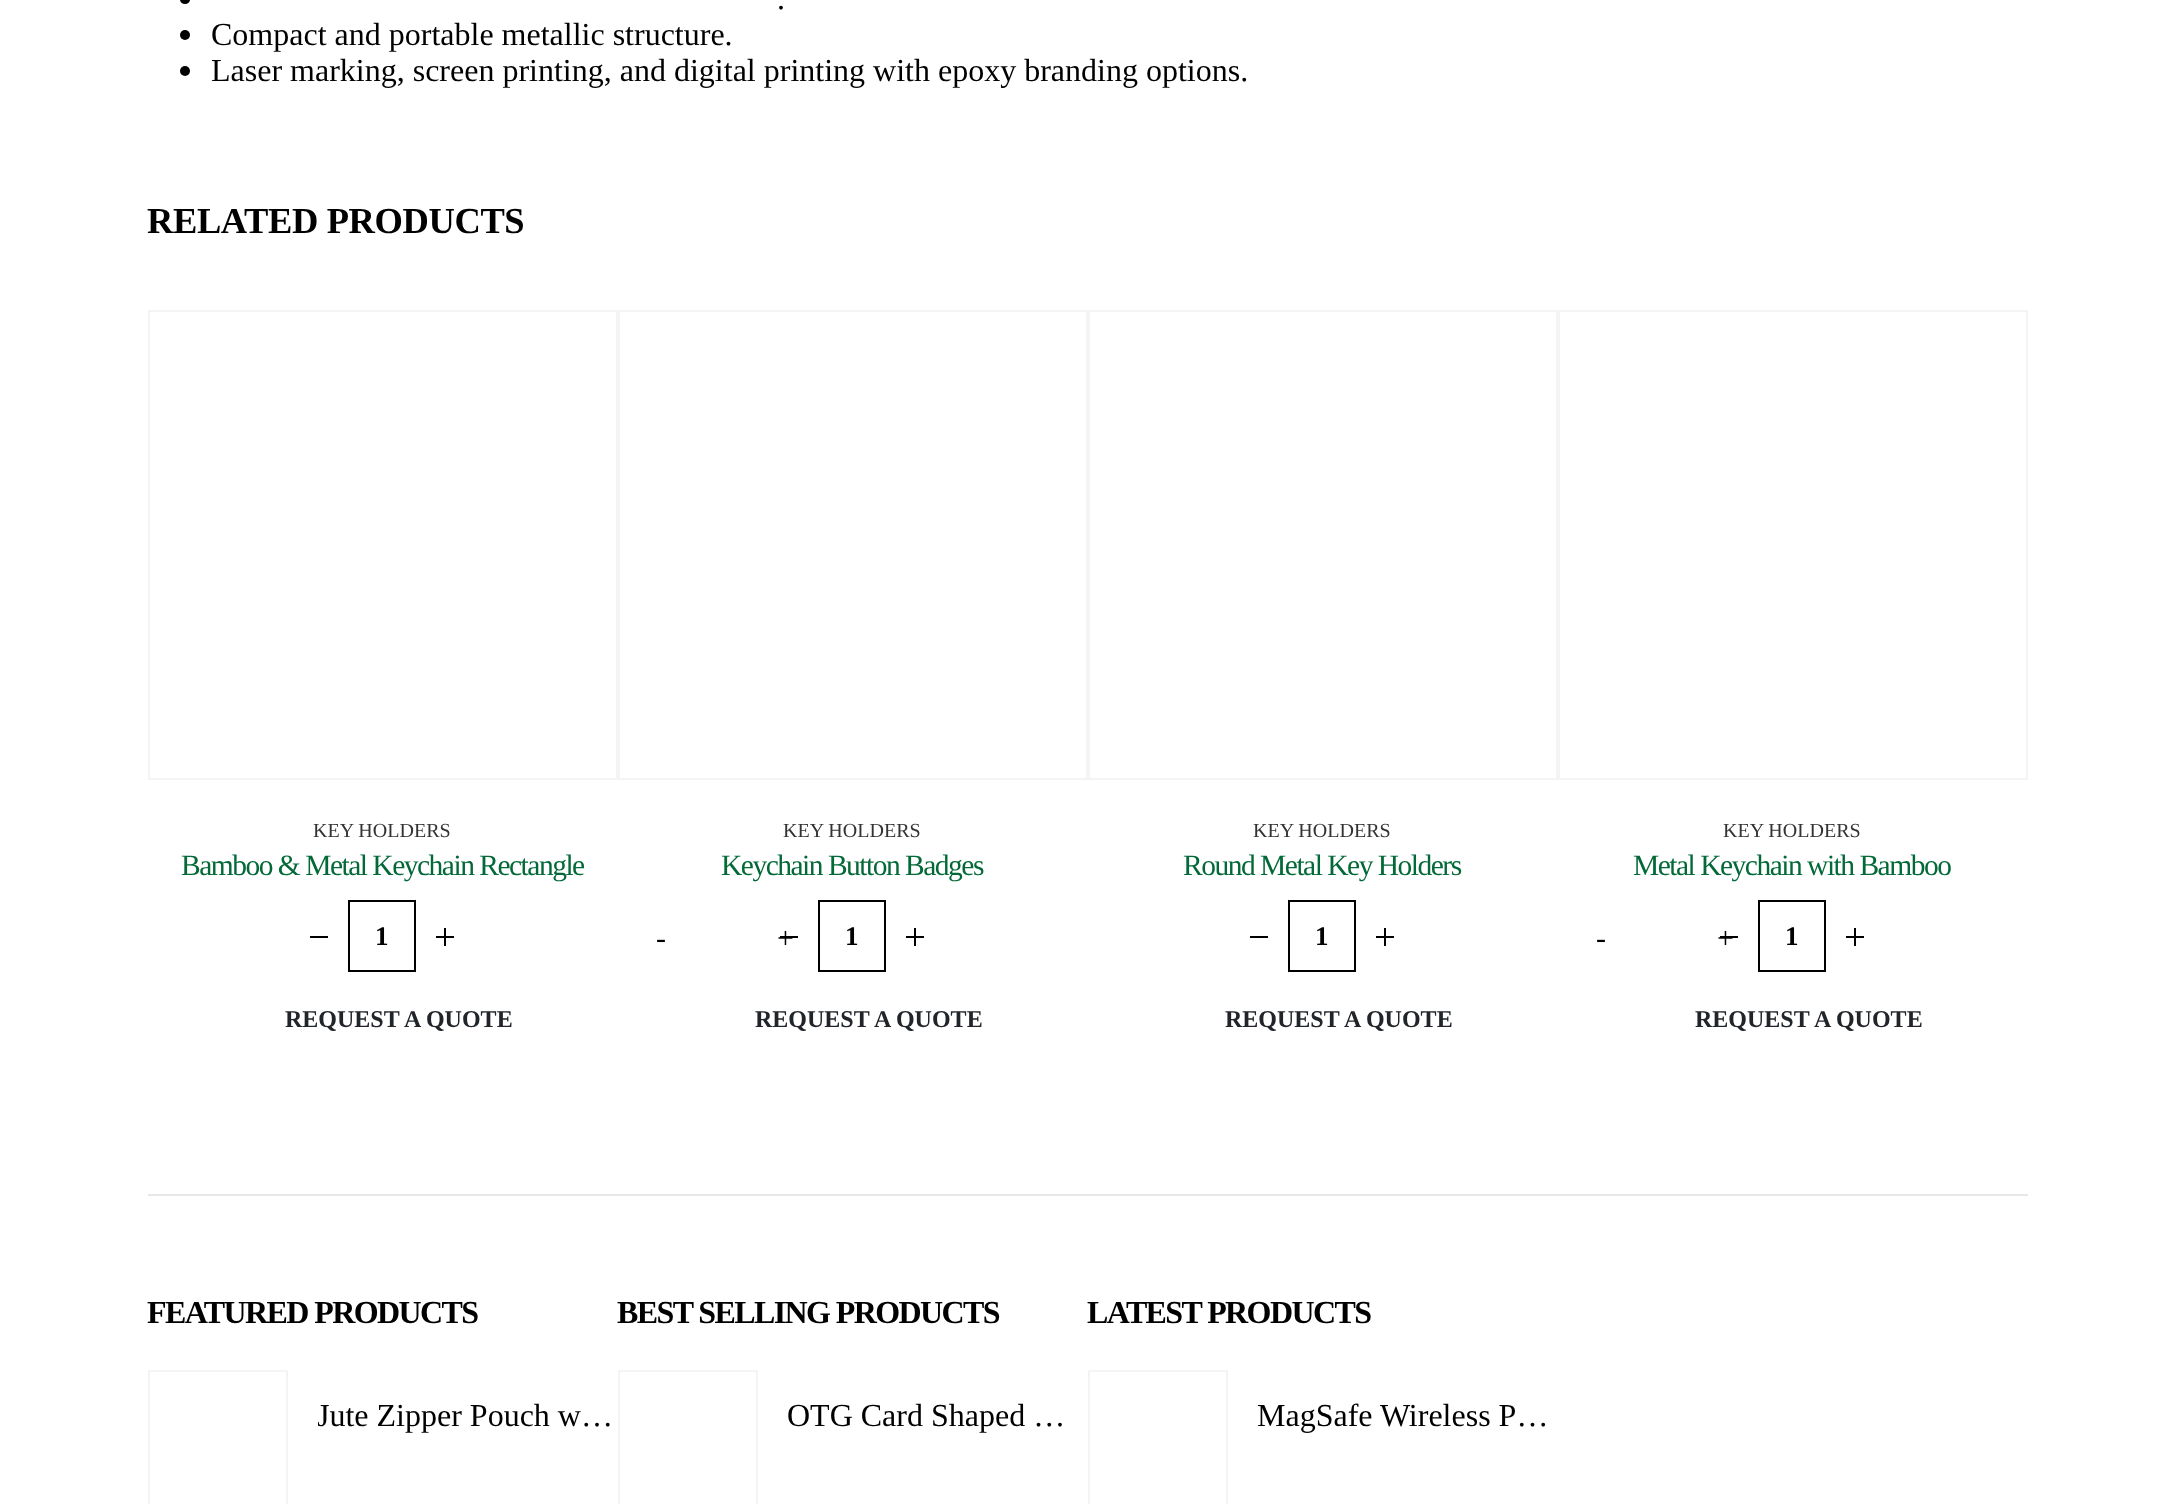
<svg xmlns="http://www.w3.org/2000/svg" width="2174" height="1504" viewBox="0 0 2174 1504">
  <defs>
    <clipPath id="clip1"><rect x="318" y="1394" width="300" height="44"/></clipPath>
  </defs>
  <rect width="100%" height="100%" fill="#ffffff"/>
  <rect x="180" y="-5" width="10" height="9" rx="5" fill="#000000"/>
  <text x="777" y="9" font-family="Liberation Serif" font-size="32" fill="#000000">.</text>
  <circle cx="185" cy="35" r="5" fill="#000000"/>
  <text x="211" y="45" font-family="Liberation Serif" font-size="32" fill="#000000">Compact and portable metallic structure.</text>
  <circle cx="185" cy="71" r="5" fill="#000000"/>
  <text x="211" y="81" font-family="Liberation Serif" font-size="32" fill="#000000">Laser marking, screen printing, and digital printing with epoxy branding options.</text>
  <text x="147" y="233" font-family="Liberation Serif" font-size="36.5" font-weight="bold" letter-spacing="-0.4" fill="#000000">RELATED PRODUCTS</text>
  <rect x="149" y="311" width="468" height="468" fill="none" stroke="#f4f4f4" stroke-width="2"/>
  <text x="313" y="837" font-family="Liberation Serif" font-size="20" fill="#333333">KEY HOLDERS</text>
  <text x="181" y="875" font-family="Liberation Serif" font-size="29.5" letter-spacing="-1.5" fill="#046938">Bamboo &amp; Metal Keychain Rectangle</text>
  <rect x="310" y="936" width="18" height="2" fill="#000000"/>
  <rect x="349" y="901" width="66" height="70" fill="none" stroke="#000000" stroke-width="2"/>
  <text x="375" y="945" font-family="Liberation Serif" font-size="27" font-weight="bold" fill="#000000">1</text>
  <rect x="436" y="936" width="18" height="2" fill="#000000"/>
  <rect x="444" y="928" width="2" height="18" fill="#000000"/>
  <text x="285" y="1027" font-family="Liberation Serif" font-size="24" font-weight="bold" fill="#212529">REQUEST A QUOTE</text>
  <rect x="619" y="311" width="468" height="468" fill="none" stroke="#f4f4f4" stroke-width="2"/>
  <text x="783" y="837" font-family="Liberation Serif" font-size="20" fill="#333333">KEY HOLDERS</text>
  <text x="721" y="875" font-family="Liberation Serif" font-size="29.5" letter-spacing="-1.5" fill="#046938">Keychain Button Badges</text>
  <rect x="780" y="936" width="18" height="2" fill="#000000"/>
  <rect x="819" y="901" width="66" height="70" fill="none" stroke="#000000" stroke-width="2"/>
  <text x="845" y="945" font-family="Liberation Serif" font-size="27" font-weight="bold" fill="#000000">1</text>
  <rect x="906" y="936" width="18" height="2" fill="#000000"/>
  <rect x="914" y="928" width="2" height="18" fill="#000000"/>
  <text x="755" y="1027" font-family="Liberation Serif" font-size="24" font-weight="bold" fill="#212529">REQUEST A QUOTE</text>
  <rect x="1089" y="311" width="468" height="468" fill="none" stroke="#f4f4f4" stroke-width="2"/>
  <text x="1253" y="837" font-family="Liberation Serif" font-size="20" fill="#333333">KEY HOLDERS</text>
  <text x="1183" y="875" font-family="Liberation Serif" font-size="29.5" letter-spacing="-1.5" fill="#046938">Round Metal Key Holders</text>
  <rect x="1250" y="936" width="18" height="2" fill="#000000"/>
  <rect x="1289" y="901" width="66" height="70" fill="none" stroke="#000000" stroke-width="2"/>
  <text x="1315" y="945" font-family="Liberation Serif" font-size="27" font-weight="bold" fill="#000000">1</text>
  <rect x="1376" y="936" width="18" height="2" fill="#000000"/>
  <rect x="1384" y="928" width="2" height="18" fill="#000000"/>
  <text x="1225" y="1027" font-family="Liberation Serif" font-size="24" font-weight="bold" fill="#212529">REQUEST A QUOTE</text>
  <rect x="1559" y="311" width="468" height="468" fill="none" stroke="#f4f4f4" stroke-width="2"/>
  <text x="1723" y="837" font-family="Liberation Serif" font-size="20" fill="#333333">KEY HOLDERS</text>
  <text x="1633" y="875" font-family="Liberation Serif" font-size="29.5" letter-spacing="-1.5" fill="#046938">Metal Keychain with Bamboo</text>
  <rect x="1720" y="936" width="18" height="2" fill="#000000"/>
  <rect x="1759" y="901" width="66" height="70" fill="none" stroke="#000000" stroke-width="2"/>
  <text x="1785" y="945" font-family="Liberation Serif" font-size="27" font-weight="bold" fill="#000000">1</text>
  <rect x="1846" y="936" width="18" height="2" fill="#000000"/>
  <rect x="1854" y="928" width="2" height="18" fill="#000000"/>
  <text x="1695" y="1027" font-family="Liberation Serif" font-size="24" font-weight="bold" fill="#212529">REQUEST A QUOTE</text>
  <text x="656" y="948" font-family="Liberation Serif" font-size="30" fill="#000000">-</text>
  <text x="777" y="948" font-family="Liberation Serif" font-size="30" fill="#000000">+</text>
  <text x="1596" y="948" font-family="Liberation Serif" font-size="30" fill="#000000">-</text>
  <text x="1717" y="948" font-family="Liberation Serif" font-size="30" fill="#000000">+</text>
  <rect x="148" y="1194" width="1880" height="2" fill="#e7e7e7"/>
  <text x="147" y="1323" font-family="Liberation Serif" font-size="32" font-weight="bold" letter-spacing="-1.6" fill="#000000">FEATURED PRODUCTS</text>
  <rect x="149" y="1371" width="138" height="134" fill="none" stroke="#f4f4f4" stroke-width="2"/>
  <g clip-path="url(#clip1)">
    <text x="317" y="1426" font-family="Liberation Serif" font-size="32" fill="#000000">Jute Zipper Pouch w…</text>
  </g>
  <text x="617" y="1323" font-family="Liberation Serif" font-size="32" font-weight="bold" letter-spacing="-1.6" fill="#000000">BEST SELLING PRODUCTS</text>
  <rect x="619" y="1371" width="138" height="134" fill="none" stroke="#f4f4f4" stroke-width="2"/>
  <text x="787" y="1426" font-family="Liberation Serif" font-size="32" fill="#000000">OTG Card Shaped …</text>
  <text x="1087" y="1323" font-family="Liberation Serif" font-size="32" font-weight="bold" letter-spacing="-1.6" fill="#000000">LATEST PRODUCTS</text>
  <rect x="1089" y="1371" width="138" height="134" fill="none" stroke="#f4f4f4" stroke-width="2"/>
  <text x="1257" y="1426" font-family="Liberation Serif" font-size="32" fill="#000000">MagSafe Wireless P…</text>
</svg>
